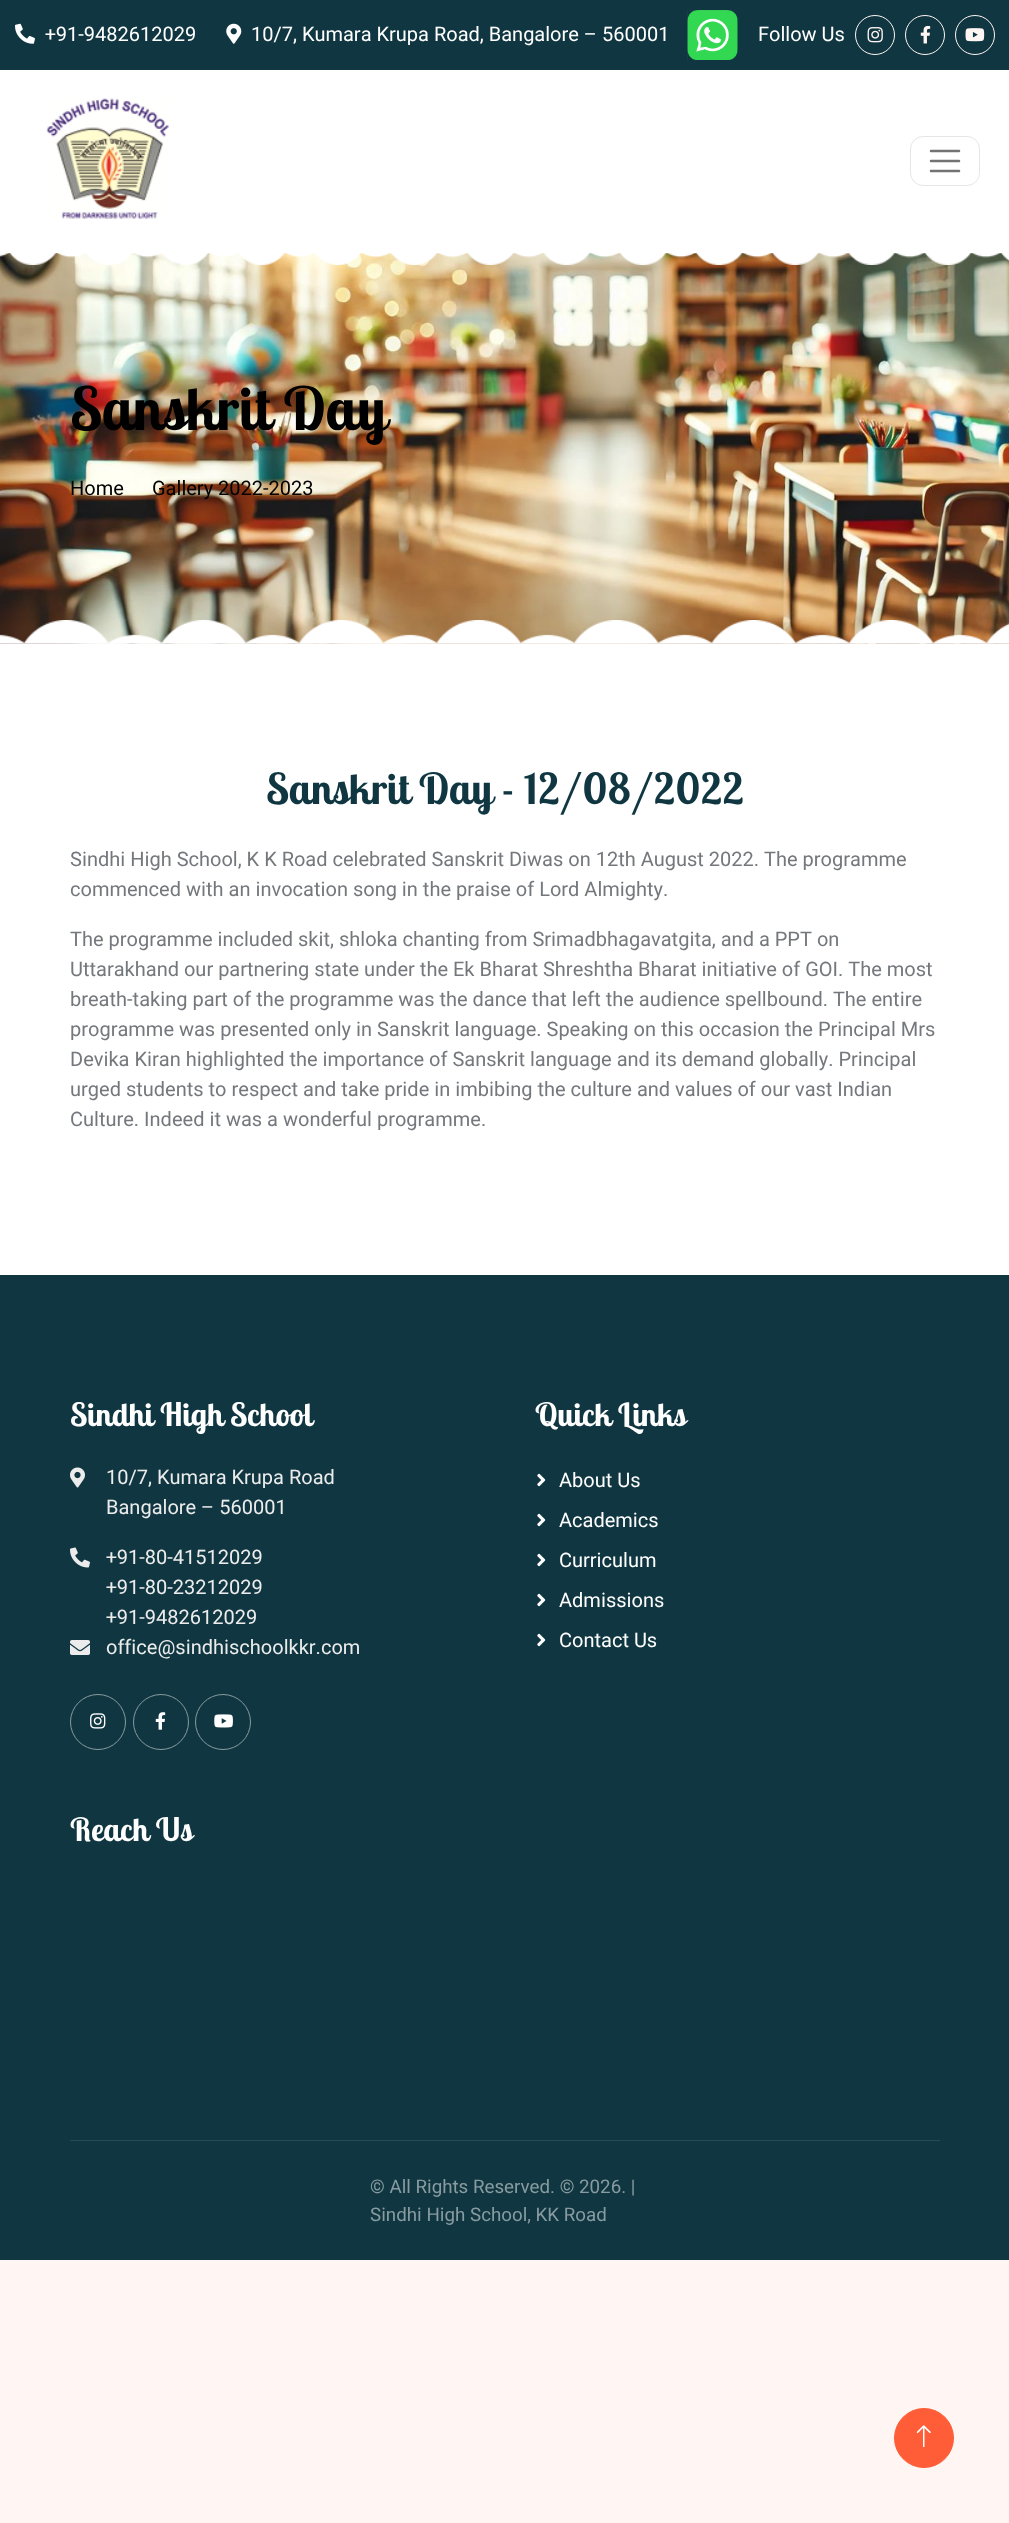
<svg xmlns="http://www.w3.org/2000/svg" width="1009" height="2523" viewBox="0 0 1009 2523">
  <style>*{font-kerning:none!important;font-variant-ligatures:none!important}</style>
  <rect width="100%" height="100%" fill="#fff5f3"/>
  <rect x="0" y="643" width="1009" height="632" fill="#ffffff"/>
  <rect x="0" y="0" width="1009" height="70" fill="#103741"/>
  <image x="15" y="23" width="20" height="21" href="img1.png"/>
  <text x="45" y="41" font-family="Heebo" font-size="20" fill="#ffffff">+91-9482612029</text>
  <image x="226" y="23" width="16" height="21" href="img2.png"/>
  <text x="251" y="41" font-family="Heebo" font-size="20" fill="#ffffff">10/7, Kumara Krupa Road, Bangalore – 560001</text>
  <image x="687" y="10" width="51" height="50" href="img3.png"/>
  <text x="758" y="41" font-family="Heebo" font-size="20" fill="#ffffff">Follow Us</text>
  <circle cx="875" cy="35" r="19.5" fill="none" stroke="#fff5f3"/>
  <image x="867" y="27" width="16" height="16" href="img4.png"/>
  <circle cx="925" cy="35" r="19.5" fill="none" stroke="#fff5f3"/>
  <image x="920" y="25" width="11" height="19" href="img5.png"/>
  <circle cx="975" cy="35" r="19.5" fill="none" stroke="#fff5f3"/>
  <image x="965" y="28" width="20" height="14" href="img6.png"/>
  <rect x="0" y="70" width="1009" height="183" fill="#ffffff"/>
  <image x="46" y="98" width="123" height="121" href="img7.png"/>
  <rect x="910.5" y="136.5" width="69" height="49" rx="12.5" fill="none" stroke="#e6e6e6"/>
  <path d="M931 151H959M931 161H959M931 171H959" fill="none" stroke="#737373" stroke-width="2.5" stroke-linecap="round"/>
  <image x="0" y="253" width="1009" height="391" href="img8.png"/>
  <image x="0" y="253" width="1009" height="12" href="img9.png"/>
  <text x="70" y="430" font-family="Lobster Two" font-size="59.5" font-weight="bold" fill="#000000">Sanskrit Day</text>
  <text x="70" y="495" font-family="Heebo" font-size="20" fill="#000000">Home</text>
  <text x="152" y="495" font-family="Heebo" font-size="20" fill="#000000">Gallery 2022-2023</text>
  <image x="0" y="620" width="1009" height="24" href="img10.png"/>
  <text x="266" y="804" font-family="Lobster Two" font-size="42.6" font-weight="bold" fill="#103741">Sanskrit Day - 12/08/2022</text>
  <text x="70" y="866" font-family="Heebo" font-size="20" fill="#74787c">Sindhi High School, K K Road celebrated Sanskrit Diwas on 12th August 2022. The programme</text>
  <text x="70" y="896" font-family="Heebo" font-size="20" fill="#74787c">commenced with an invocation song in the praise of Lord Almighty.</text>
  <text x="70" y="946" font-family="Heebo" font-size="20" fill="#74787c">The programme included skit, shloka chanting from Srimadbhagavatgita, and a PPT on</text>
  <text x="70" y="976" font-family="Heebo" font-size="20" fill="#74787c">Uttarakhand our partnering state under the Ek Bharat Shreshtha Bharat initiative of GOI. The most</text>
  <text x="70" y="1006" font-family="Heebo" font-size="20" fill="#74787c">breath-taking part of the programme was the dance that left the audience spellbound. The entire</text>
  <text x="70" y="1036" font-family="Heebo" font-size="20" fill="#74787c">programme was presented only in Sanskrit language. Speaking on this occasion the Principal Mrs</text>
  <text x="70" y="1066" font-family="Heebo" font-size="20" fill="#74787c">Devika Kiran highlighted the importance of Sanskrit language and its demand globally. Principal</text>
  <text x="70" y="1096" font-family="Heebo" font-size="20" fill="#74787c">urged students to respect and take pride in imbibing the culture and values of our vast Indian</text>
  <text x="70" y="1126" font-family="Heebo" font-size="20" fill="#74787c">Culture. Indeed it was a wonderful programme.</text>
  <rect x="0" y="1275" width="1009" height="985" fill="#103741"/>
  <text x="70" y="1426" font-family="Lobster Two" font-size="32" font-weight="bold" fill="#ffffff">Sindhi High School</text>
  <image x="70" y="1467" width="15" height="21" href="img11.png"/>
  <text x="106" y="1484" font-family="Heebo" font-size="20" fill="#ececec">10/7, Kumara Krupa Road</text>
  <text x="106" y="1514" font-family="Heebo" font-size="20" fill="#ececec">Bangalore – 560001</text>
  <image x="70" y="1547" width="20" height="21" href="img12.png"/>
  <text x="106" y="1564" font-family="Heebo" font-size="20" fill="#ececec">+91-80-41512029</text>
  <text x="106" y="1594" font-family="Heebo" font-size="20" fill="#ececec">+91-80-23212029</text>
  <text x="106" y="1624" font-family="Heebo" font-size="20" fill="#ececec">+91-9482612029</text>
  <image x="70" y="1640" width="20" height="15" href="img13.png"/>
  <text x="106" y="1654" font-family="Heebo" font-size="20" fill="#ececec">office@sindhischoolkkr.com</text>
  <circle cx="98" cy="1722" r="27.5" fill="none" stroke="#889ba0"/>
  <image x="90" y="1713" width="16" height="16" href="img14.png"/>
  <circle cx="161" cy="1722" r="27.5" fill="none" stroke="#889ba0"/>
  <image x="155" y="1712" width="11" height="18" href="img15.png"/>
  <circle cx="223" cy="1722" r="27.5" fill="none" stroke="#889ba0"/>
  <image x="214" y="1714" width="19" height="14" href="img16.png"/>
  <text x="535" y="1426" font-family="Lobster Two" font-size="32" font-weight="bold" fill="#ffffff">Quick Links</text>
  <image x="537" y="1473" width="9" height="14" href="img17.png"/>
  <text x="559" y="1487" font-family="Heebo" font-size="20" fill="#ffffff">About Us</text>
  <image x="537" y="1513" width="9" height="14" href="img17.png"/>
  <text x="559" y="1527" font-family="Heebo" font-size="20" fill="#ffffff">Academics</text>
  <image x="537" y="1553" width="9" height="14" href="img17.png"/>
  <text x="559" y="1567" font-family="Heebo" font-size="20" fill="#ffffff">Curriculum</text>
  <image x="537" y="1593" width="9" height="14" href="img17.png"/>
  <text x="559" y="1607" font-family="Heebo" font-size="20" fill="#ffffff">Admissions</text>
  <image x="537" y="1633" width="9" height="14" href="img17.png"/>
  <text x="559" y="1647" font-family="Heebo" font-size="20" fill="#ffffff">Contact Us</text>
  <text x="70" y="1841" font-family="Lobster Two" font-size="32" font-weight="bold" fill="#ffffff">Reach Us</text>
  <rect x="70" y="2140" width="870" height="1" fill="#284b54"/>
  <text x="370" y="2193" font-family="Heebo" font-size="18.75" fill="#889ba0">© All Rights Reserved. © 2026. |</text>
  <text x="370" y="2221" font-family="Heebo" font-size="18.75" fill="#889ba0">Sindhi High School, KK Road</text>
  <circle cx="924" cy="2438" r="29.5" fill="#fe5d37" stroke="#fe5d37"/>
  <image x="916" y="2425" width="15" height="23" href="img18.png"/>
</svg>
